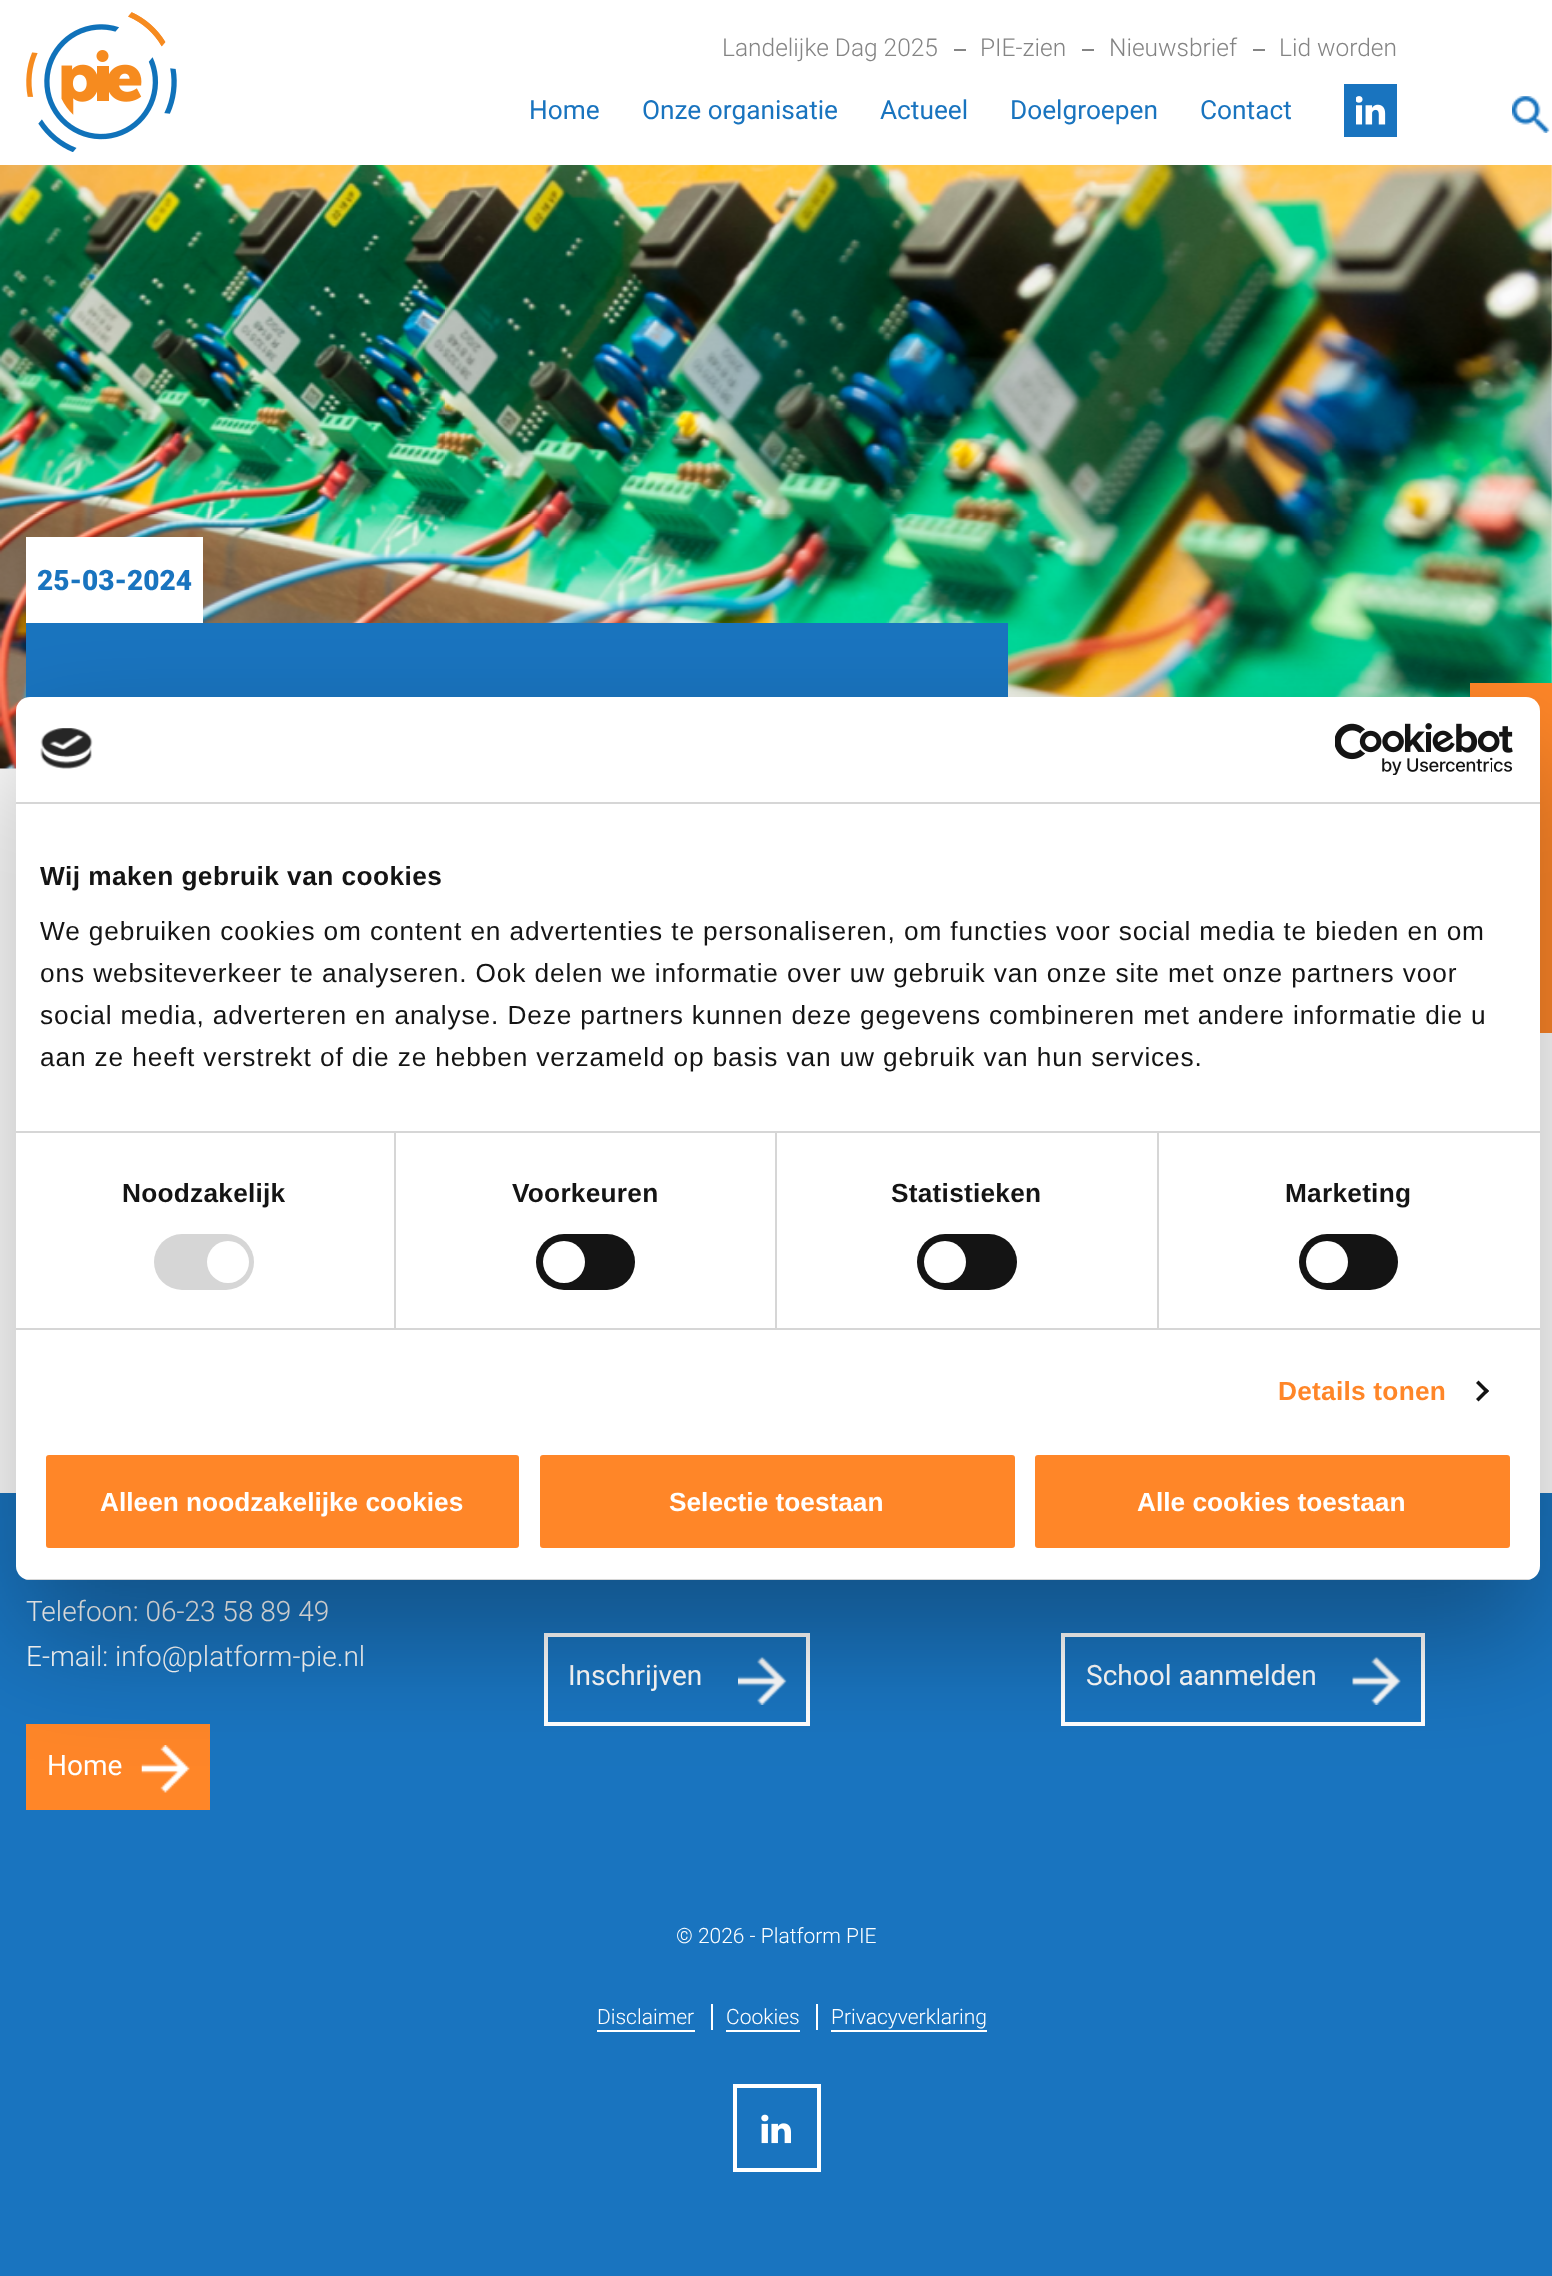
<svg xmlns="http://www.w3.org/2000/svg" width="1552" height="2276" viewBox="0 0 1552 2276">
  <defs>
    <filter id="blur1" x="-50%" y="-200%" width="200%" height="500%"><feGaussianBlur stdDeviation="59.5"/></filter>
    <clipPath id="clip1"><rect x="16" y="697" width="1524" height="883" rx="14"/></clipPath>
  </defs>
  <rect width="100%" height="100%" fill="#ffffff"/>
  <image x="26" y="12" width="151" height="140" href="img1.png"/>
  <text x="722" y="56" font-family="Roboto" font-size="24.5" font-weight="300" fill="#848484">Landelijke Dag 2025</text>
  <rect x="954" y="49" width="12" height="2" fill="#848484"/>
  <text x="980" y="56" font-family="Roboto" font-size="24.5" font-weight="300" fill="#848484">PIE-zien</text>
  <rect x="1082" y="49" width="12" height="2" fill="#848484"/>
  <text x="1109" y="56" font-family="Roboto" font-size="24.5" font-weight="300" fill="#848484">Nieuwsbrief</text>
  <rect x="1253" y="49" width="12" height="2" fill="#848484"/>
  <text x="1279" y="56" font-family="Roboto" font-size="24.5" font-weight="300" fill="#848484">Lid worden</text>
  <text x="529" y="119" font-family="Roboto" font-size="26.25" fill="#1974bf">Home</text>
  <text x="642" y="119" font-family="Roboto" font-size="26.25" fill="#1974bf">Onze organisatie</text>
  <text x="880" y="119" font-family="Roboto" font-size="26.25" fill="#1974bf">Actueel</text>
  <text x="1010" y="119" font-family="Roboto" font-size="26.25" fill="#1974bf">Doelgroepen</text>
  <text x="1200" y="119" font-family="Roboto" font-size="26.25" fill="#1974bf">Contact</text>
  <rect x="1344" y="84" width="53" height="53" fill="#1974bf"/>
  <image x="1356" y="96" width="30" height="29" href="img2.png"/>
  <image x="1512" y="96" width="38" height="37" href="img3.png"/>
  <image x="0" y="165" width="1552" height="604" href="img4.png"/>
  <rect x="26" y="537" width="177" height="86" fill="#ffffff"/>
  <text x="37" y="590" font-family="Roboto" font-size="28" font-weight="900" fill="#1974bf">25-03-2024</text>
  <rect x="26" y="623" width="982" height="75" fill="#1974bf"/>
  <rect x="1470" y="683" width="82" height="350" fill="#ff8628"/>
  <rect x="0" y="1493" width="1552" height="783" fill="#1974bf"/>
  <text x="26" y="1621" font-family="Roboto" font-size="28" font-weight="300" fill="#ffffff">Telefoon: 06-23 58 89 49</text>
  <text x="26" y="1666" font-family="Roboto" font-size="28" font-weight="300" fill="#ffffff">E-mail: info@platform-pie.nl</text>
  <rect x="26" y="1724" width="184" height="86" fill="#ff8628"/>
  <text x="47" y="1775" font-family="Roboto" font-size="28" fill="#ffffff">Home</text>
  <image x="141" y="1745" width="49" height="48" href="img5.png"/>
  <rect x="546" y="1635" width="262" height="89" fill="none" stroke="#ffffff" stroke-width="4"/>
  <text x="568" y="1685" font-family="Roboto" font-size="28" fill="#ffffff">Inschrijven</text>
  <image x="738" y="1656" width="49" height="49" href="img6.png"/>
  <rect x="1063" y="1635" width="360" height="89" fill="none" stroke="#ffffff" stroke-width="4"/>
  <text x="1086" y="1685" font-family="Roboto" font-size="28" fill="#ffffff">School aanmelden</text>
  <image x="1352" y="1656" width="49" height="49" href="img7.png"/>
  <text x="676" y="1943" font-family="Roboto" font-size="21" font-weight="300" fill="#ffffff">© 2026 - Platform PIE</text>
  <rect x="597" y="2030" width="98" height="2" fill="#ffffff"/>
  <text x="597" y="2024" font-family="Roboto" font-size="21" font-weight="300" fill="#ffffff">Disclaimer</text>
  <rect x="711" y="2004" width="2" height="26" fill="#ffffff"/>
  <rect x="726" y="2030" width="74" height="2" fill="#ffffff"/>
  <text x="726" y="2024" font-family="Roboto" font-size="21" font-weight="300" fill="#ffffff">Cookies</text>
  <rect x="816" y="2004" width="2" height="26" fill="#ffffff"/>
  <rect x="831" y="2030" width="156" height="2" fill="#ffffff"/>
  <text x="831" y="2024" font-family="Roboto" font-size="21" font-weight="300" fill="#ffffff">Privacyverklaring</text>
  <rect x="735" y="2086" width="84" height="84" fill="none" stroke="#ffffff" stroke-width="4"/>
  <image x="761" y="2114" width="30" height="30" href="img8.png"/>
  <rect x="16" y="753" width="1524" height="883" rx="14" fill="#000000" fill-opacity="0.3" filter="url(#blur1)"/>
  <rect x="16" y="697" width="1524" height="883" rx="14" fill="#ffffff"/>
  <rect x="16" y="802" width="1524" height="2" fill="#d6d6d6"/>
  <image x="40" y="728" width="53" height="41" href="img9.png"/>
  <image x="1335" y="723" width="178" height="52" href="img10.png"/>
  <rect x="394" y="1132" width="2" height="196" fill="#d6d6d6"/>
  <rect x="775" y="1132" width="2" height="196" fill="#d6d6d6"/>
  <rect x="1157" y="1132" width="2" height="196" fill="#d6d6d6"/>
  <rect x="16" y="1131" width="1524" height="2" fill="#d6d6d6"/>
  <text x="40" y="885" font-family="Liberation Sans" font-size="26.25" font-weight="bold" letter-spacing="0.45" fill="#141414">Wij maken gebruik van cookies</text>
  <text x="40" y="940" font-family="Liberation Sans" font-size="26.25" letter-spacing="0.88" fill="#141414">We gebruiken cookies om content en advertenties te personaliseren, om functies voor social media te bieden en om</text>
  <text x="40" y="982" font-family="Liberation Sans" font-size="26.25" letter-spacing="0.88" fill="#141414">ons websiteverkeer te analyseren. Ook delen we informatie over uw gebruik van onze site met onze partners voor</text>
  <text x="40" y="1024" font-family="Liberation Sans" font-size="26.25" letter-spacing="0.88" fill="#141414">social media, adverteren en analyse. Deze partners kunnen deze gegevens combineren met andere informatie die u</text>
  <text x="40" y="1066" font-family="Liberation Sans" font-size="26.25" letter-spacing="0.88" fill="#141414">aan ze heeft verstrekt of die ze hebben verzameld op basis van uw gebruik van hun services.</text>
  <rect x="16" y="1328" width="1524" height="2" fill="#d6d6d6"/>
  <text x="122" y="1202" font-family="Liberation Sans" font-size="26.25" font-weight="bold" letter-spacing="0.25" fill="#141414">Noodzakelijk</text>
  <rect x="154" y="1234" width="100" height="56" rx="28" fill="#d6d6d6"/>
  <circle cx="228" cy="1262" r="21" fill="#ffffff"/>
  <text x="512" y="1202" font-family="Liberation Sans" font-size="26.25" font-weight="bold" letter-spacing="0.25" fill="#141414">Voorkeuren</text>
  <rect x="536" y="1234" width="99" height="56" rx="28" fill="#141414"/>
  <circle cx="564" cy="1262" r="21" fill="#ffffff"/>
  <text x="891" y="1202" font-family="Liberation Sans" font-size="26.25" font-weight="bold" letter-spacing="0.25" fill="#141414">Statistieken</text>
  <rect x="917" y="1234" width="100" height="56" rx="28" fill="#141414"/>
  <circle cx="945" cy="1262" r="21" fill="#ffffff"/>
  <text x="1285" y="1202" font-family="Liberation Sans" font-size="26.25" font-weight="bold" letter-spacing="0.25" fill="#141414">Marketing</text>
  <rect x="1299" y="1234" width="99" height="56" rx="28" fill="#141414"/>
  <circle cx="1327" cy="1262" r="21" fill="#ffffff"/>
  <text x="1278" y="1400" font-family="Liberation Sans" font-size="26.25" font-weight="bold" letter-spacing="0.25" fill="#ff8628">Details tonen</text>
  <path d="M1478.5 1380.5L1489 1391L1486.5 1393.5L1476 1383Z" fill="#141414"/>
  <path d="M1486.5 1388.5L1489 1391L1478.5 1401.5L1476 1399Z" fill="#141414"/>
  <g clip-path="url(#clip1)">
    <rect x="25" y="1579" width="1506" height="1" fill="#d6d6d6"/>
  </g>
  <rect x="44" y="1453" width="477" height="97" rx="5" fill="#ff8628" stroke="#ffffff" stroke-width="4"/>
  <text x="100" y="1511" font-family="Liberation Sans" font-size="26.25" font-weight="bold" fill="#ffffff">Alleen noodzakelijke cookies</text>
  <rect x="538" y="1453" width="479" height="97" rx="5" fill="#ff8628" stroke="#ffffff" stroke-width="4"/>
  <text x="669" y="1511" font-family="Liberation Sans" font-size="26.25" font-weight="bold" fill="#ffffff">Selectie toestaan</text>
  <rect x="1033" y="1453" width="479" height="97" rx="5" fill="#ff8628" stroke="#ffffff" stroke-width="4"/>
  <text x="1137" y="1511" font-family="Liberation Sans" font-size="26.25" font-weight="bold" fill="#ffffff">Alle cookies toestaan</text>
</svg>
